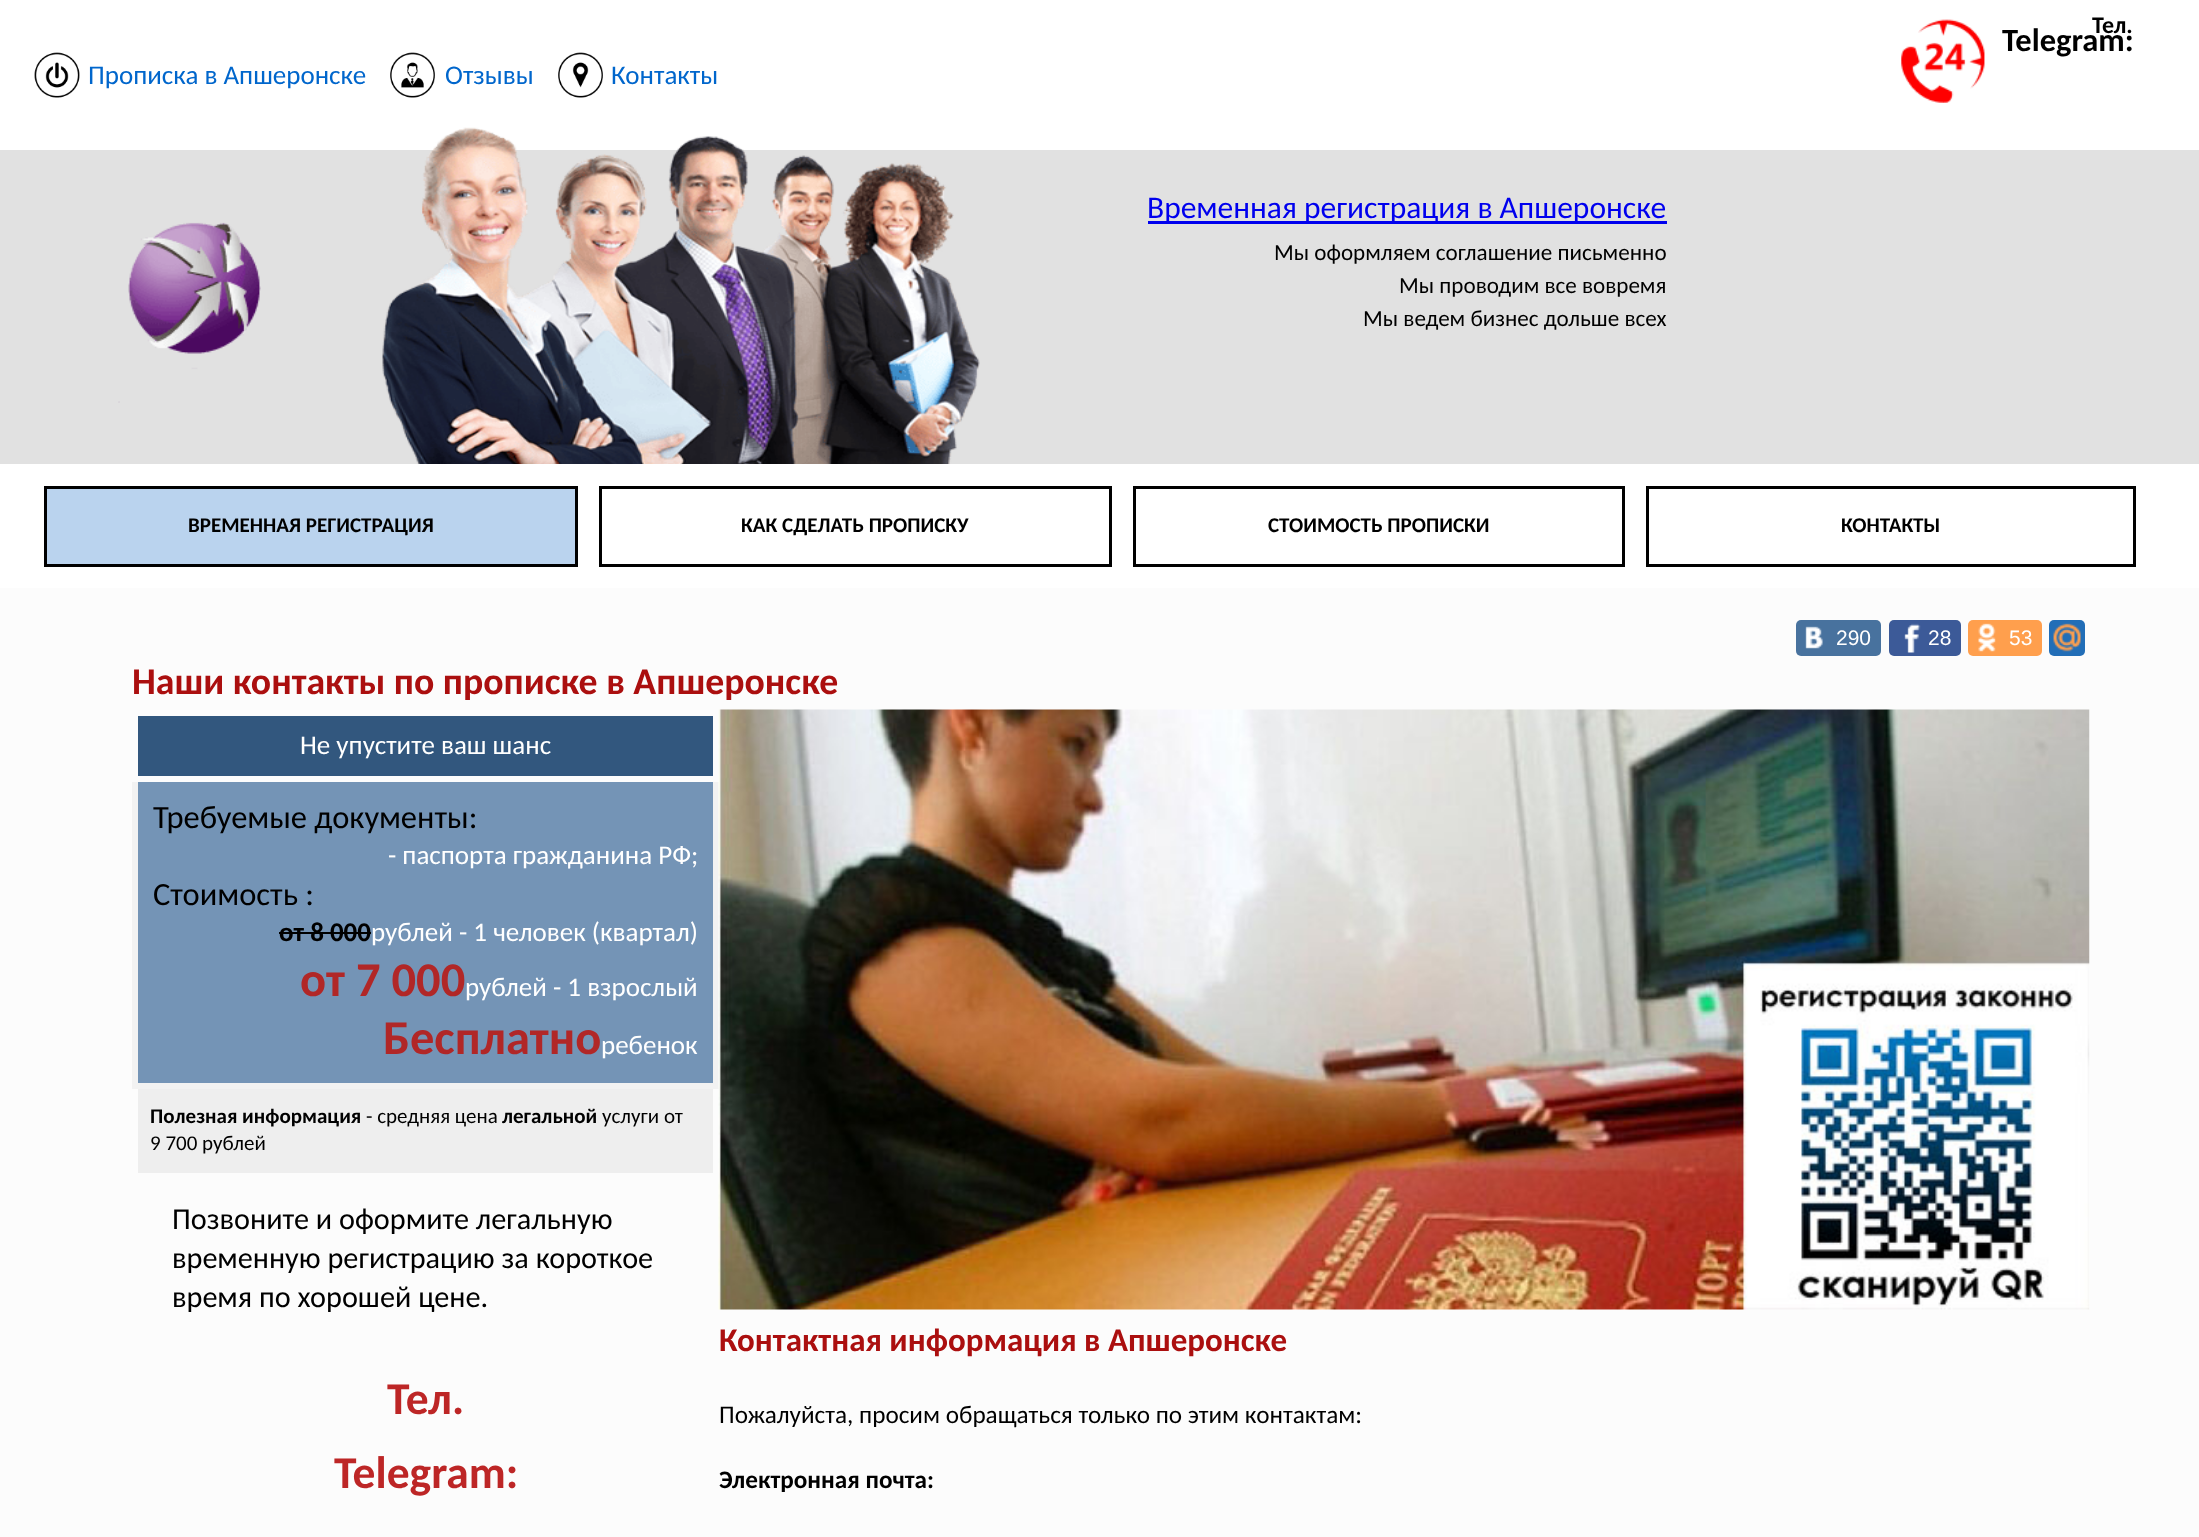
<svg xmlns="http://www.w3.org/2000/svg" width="2199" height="1537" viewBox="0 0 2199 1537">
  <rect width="100%" height="100%" fill="#fcfcfc"/>
  <rect x="0" y="0" width="2199" height="150" fill="#ffffff"/>
  <image x="1901" y="19" width="84" height="84" href="img1.png"/>
  <text x="2092" y="33" font-family="Carlito" font-size="24" font-weight="bold" fill="#000000">Тел.</text>
  <text x="2002" y="51" font-family="Carlito" font-size="32.5" font-weight="bold" fill="#000000">Telegram:</text>
  <image x="34" y="52" width="46" height="46" href="img2.png"/>
  <text x="88" y="84" font-family="Carlito" font-size="27" fill="#0066cc">Прописка в Апшеронске</text>
  <image x="390" y="52" width="45" height="46" href="img3.png"/>
  <text x="445" y="84" font-family="Carlito" font-size="27" fill="#0066cc">Отзывы</text>
  <image x="558" y="52" width="45" height="46" href="img4.png"/>
  <text x="611" y="84" font-family="Carlito" font-size="27" fill="#0066cc">Контакты</text>
  <rect x="0" y="150" width="2199" height="314" fill="#e1e1e1"/>
  <image x="118" y="222" width="143" height="181" href="img5.png"/>
  <image x="382" y="127" width="598" height="337" href="img6.png"/>
  <rect x="1148" y="221" width="519" height="3" fill="#0000ee"/>
  <text x="1147" y="218" font-family="Carlito" font-size="31.5" fill="#0000ee">Временная регистрация в Апшеронске</text>
  <text x="1274" y="260" font-family="Carlito" font-size="23.1" fill="#000000">Мы оформляем соглашение письменно</text>
  <text x="1399" y="293" font-family="Carlito" font-size="23.1" fill="#000000">Мы проводим все вовремя</text>
  <text x="1363" y="326" font-family="Carlito" font-size="23.1" fill="#000000">Мы ведем бизнес дольше всех</text>
  <rect x="0" y="464" width="2199" height="124" fill="#ffffff"/>
  <rect x="45.5" y="487.5" width="531" height="78" fill="none" stroke="#000000" stroke-width="3"/>
  <rect x="47" y="489" width="528" height="75" fill="#bad3ee"/>
  <text x="188" y="532" font-family="Carlito" font-size="21" font-weight="bold" fill="#000000">ВРЕМЕННАЯ РЕГИСТРАЦИЯ</text>
  <rect x="600.5" y="487.5" width="510" height="78" fill="none" stroke="#000000" stroke-width="3"/>
  <text x="741" y="532" font-family="Carlito" font-size="21" font-weight="bold" fill="#000000">КАК СДЕЛАТЬ ПРОПИСКУ</text>
  <rect x="1134.5" y="487.5" width="489" height="78" fill="none" stroke="#000000" stroke-width="3"/>
  <text x="1268" y="532" font-family="Carlito" font-size="21" font-weight="bold" fill="#000000">СТОИМОСТЬ ПРОПИСКИ</text>
  <rect x="1647.5" y="487.5" width="487" height="78" fill="none" stroke="#000000" stroke-width="3"/>
  <text x="1841" y="532" font-family="Carlito" font-size="21" font-weight="bold" fill="#000000">КОНТАКТЫ</text>
  <rect x="1796" y="620" width="85" height="36" rx="5" fill="#48729e"/>
  <image x="1805" y="626" width="18" height="23" href="img7.png"/>
  <text x="1836" y="645" font-family="Liberation Sans" font-size="21" fill="#ffffff">290</text>
  <rect x="1889" y="620" width="72" height="36" rx="5" fill="#3c5a98"/>
  <image x="1904" y="623" width="17" height="30" href="img8.png"/>
  <text x="1928" y="645" font-family="Liberation Sans" font-size="21" fill="#ffffff">28</text>
  <rect x="1968" y="620" width="74" height="36" rx="5" fill="#ff9f4d"/>
  <image x="1978" y="623" width="18" height="29" href="img9.png"/>
  <text x="2009" y="645" font-family="Liberation Sans" font-size="21" fill="#ffffff">53</text>
  <rect x="2049" y="620" width="36" height="36" rx="5" fill="#226eb7"/>
  <image x="2053" y="623" width="28" height="29" href="img10.png"/>
  <text x="132" y="694" font-family="Carlito" font-size="37.75" font-weight="bold" fill="#ab0f0f">Наши контакты по прописке в Апшеронске</text>
  <rect x="138" y="716" width="575" height="60" fill="#32577e"/>
  <rect x="713" y="776" width="6" height="313" fill="#f2f2f2"/>
  <rect x="713" y="776" width="6" height="6" fill="#fcfcfc"/>
  <rect x="132" y="1083" width="587" height="6" fill="#f2f2f2"/>
  <rect x="132" y="776" width="6" height="313" fill="#f2f2f2"/>
  <rect x="132" y="776" width="6" height="6" fill="#fcfcfc"/>
  <text x="300" y="754" font-family="Carlito" font-size="27" fill="#ffffff">Не упустите ваш шанс</text>
  <rect x="138" y="782" width="575" height="301" fill="#7494b6"/>
  <text x="153" y="828" font-family="Carlito" font-size="32.5" fill="#000000">Требуемые документы:</text>
  <text x="388" y="864" font-family="Carlito" font-size="27" fill="#ffffff">- паспорта гражданина РФ;</text>
  <text x="153" y="905" font-family="Carlito" font-size="32.5" fill="#000000">Стоимость :</text>
  <text x="279" y="941" font-family="Carlito" font-size="27" font-weight="bold" fill="#000000">от 8 000</text>
  <rect x="279" y="932" width="92" height="2" fill="#000000"/>
  <text x="371" y="941" font-family="Carlito" font-size="27" fill="#ffffff">рублей - 1 человек (квартал)</text>
  <text x="300" y="996" font-family="Carlito" font-size="48.5" font-weight="bold" fill="#b12727">от 7 000</text>
  <text x="465" y="996" font-family="Carlito" font-size="27" fill="#ffffff">рублей - 1 взрослый</text>
  <text x="383" y="1054" font-family="Carlito" font-size="48.5" font-weight="bold" fill="#b12727">Бесплатно</text>
  <text x="601" y="1054" font-family="Carlito" font-size="27" fill="#ffffff">ребенок</text>
  <rect x="138" y="1089" width="575" height="84" fill="#eeeeee"/>
  <text x="150" y="1123" font-family="Carlito" font-size="21" font-weight="bold" fill="#000000">Полезная информация</text>
  <text x="366" y="1123" font-family="Carlito" font-size="21" fill="#000000">- средняя цена</text>
  <text x="502" y="1123" font-family="Carlito" font-size="21" font-weight="bold" fill="#000000">легальной</text>
  <text x="602" y="1123" font-family="Carlito" font-size="21" fill="#000000">услуги от</text>
  <text x="150" y="1150" font-family="Carlito" font-size="21" fill="#000000">9 700 рублей</text>
  <text x="172" y="1229" font-family="Carlito" font-size="30.25" fill="#000000">Позвоните и оформите легальную</text>
  <text x="172" y="1268" font-family="Carlito" font-size="30.25" fill="#000000">временную регистрацию за короткое</text>
  <text x="172" y="1307" font-family="Carlito" font-size="30.25" fill="#000000">время по хорошей цене.</text>
  <text x="387" y="1414" font-family="Carlito" font-size="45.5" font-weight="bold" fill="#bd2626">Тел.</text>
  <text x="334" y="1488" font-family="Carlito" font-size="45.5" font-weight="bold" fill="#bd2626">Telegram:</text>
  <image x="718" y="709" width="1372" height="601" href="img11.png"/>
  <text x="719" y="1351" font-family="Carlito" font-size="33" font-weight="bold" fill="#ab0f0f">Контактная информация в Апшеронске</text>
  <text x="719" y="1423" font-family="Carlito" font-size="25.2" fill="#000000">Пожалуйста, просим обращаться только по этим контактам:</text>
  <text x="719" y="1488" font-family="Carlito" font-size="25.2" font-weight="bold" fill="#000000">Электронная почта:</text>
</svg>
